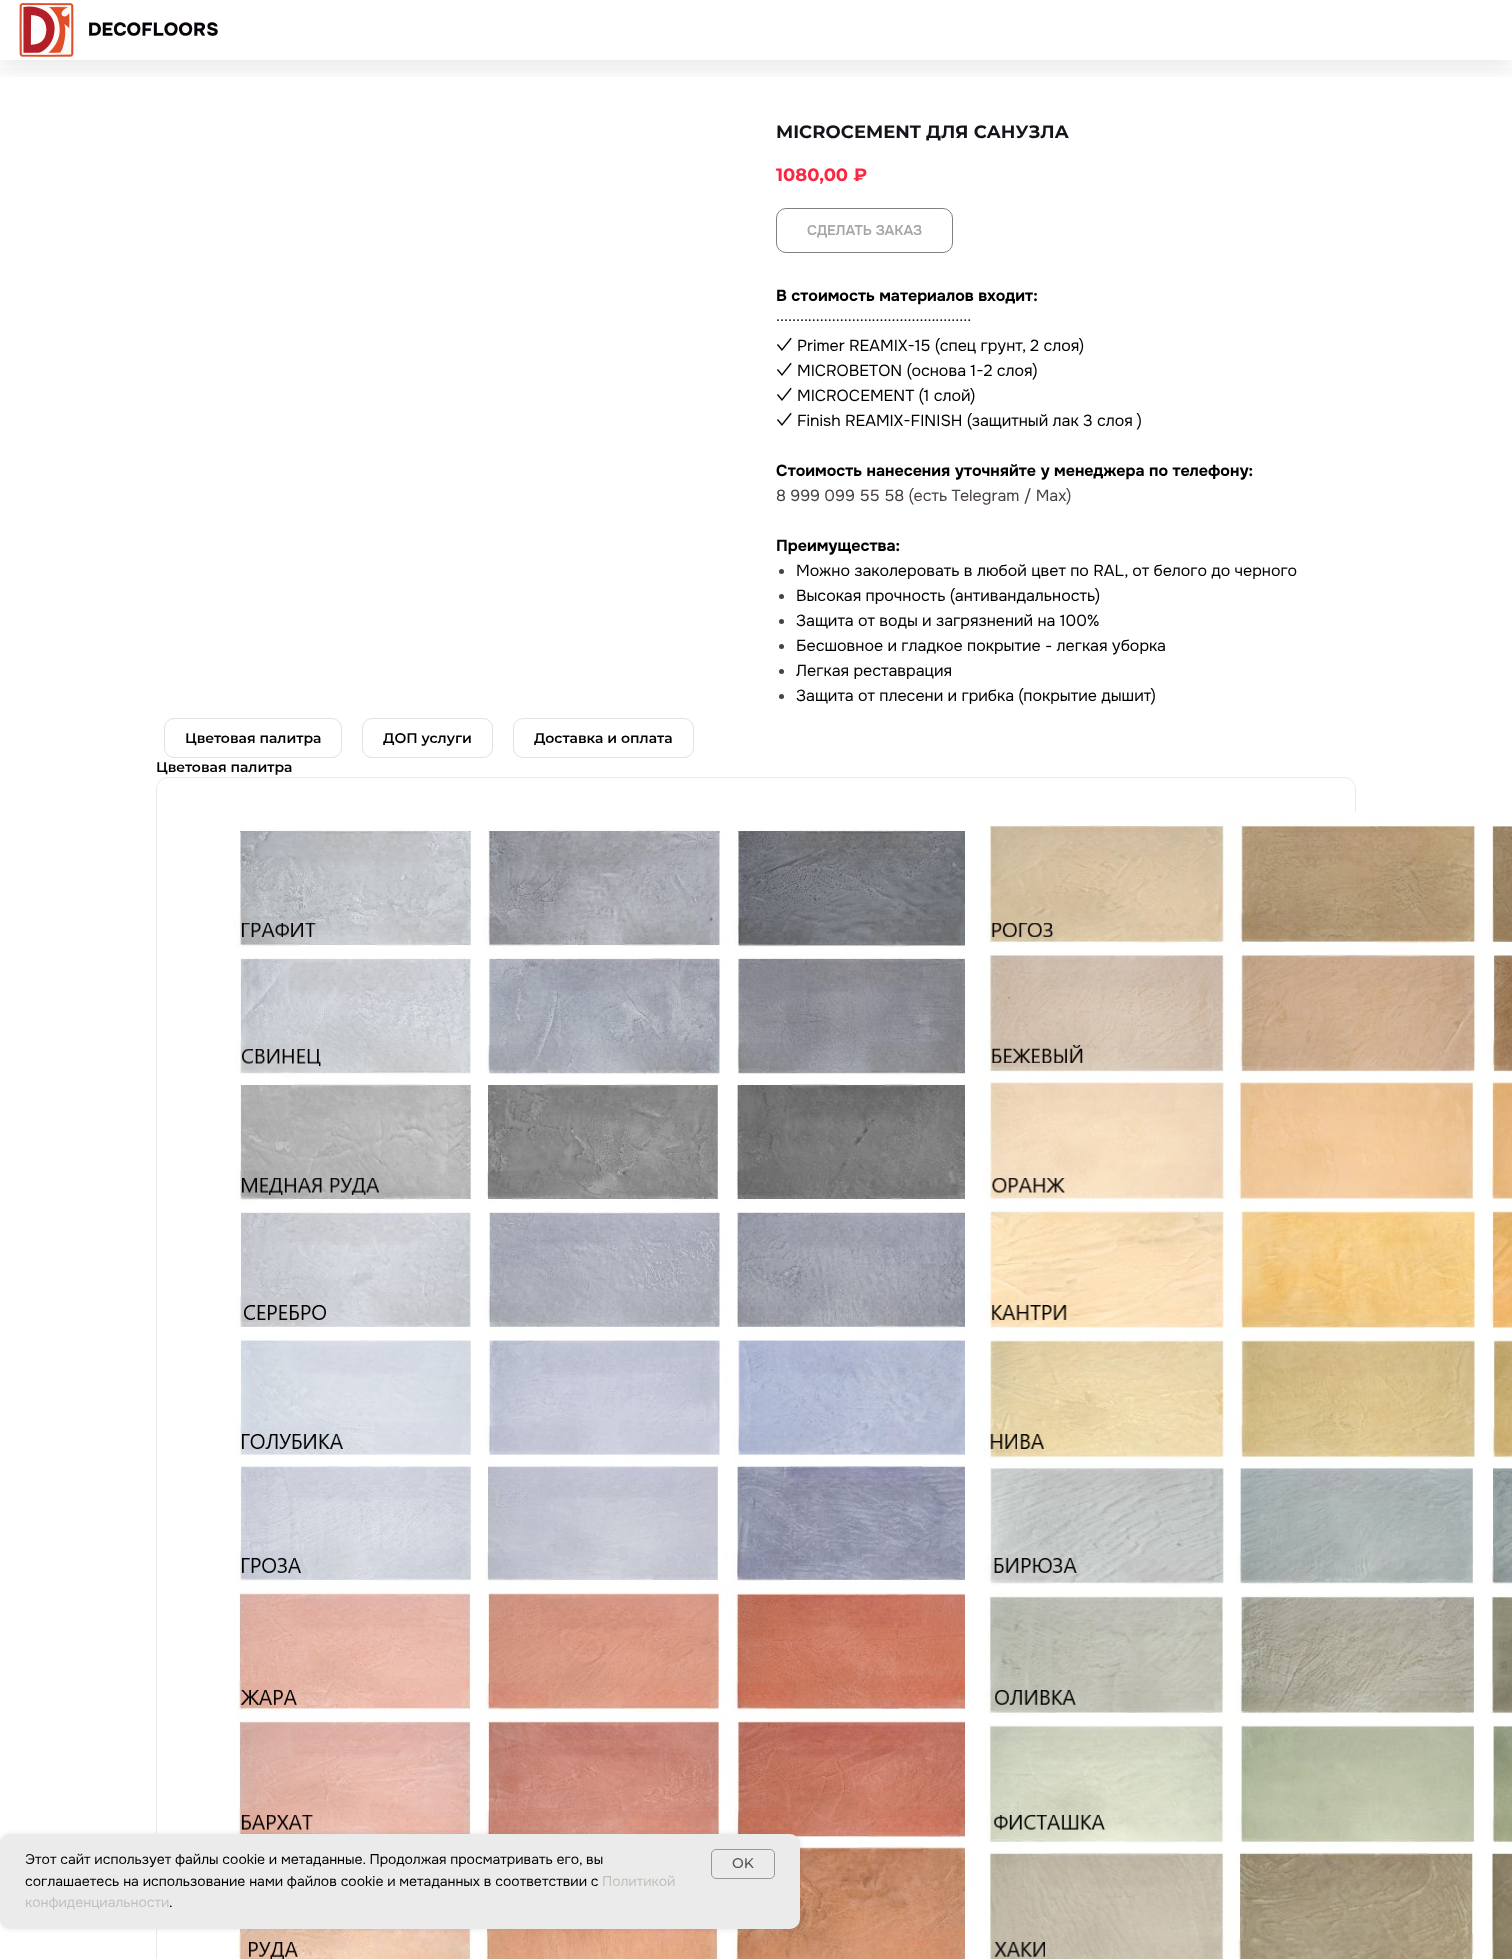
<svg xmlns="http://www.w3.org/2000/svg" width="1512" height="1959" viewBox="0 0 1512 1959">
  <defs>
    <clipPath id="clip1"><rect x="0" y="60" width="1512" height="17"/></clipPath>
    <filter id="blur1" x="-50%" y="-200%" width="200%" height="500%"><feGaussianBlur stdDeviation="10"/></filter>
    <filter id="blur2" x="-50%" y="-200%" width="200%" height="500%"><feGaussianBlur stdDeviation="2.5"/></filter>
  </defs>
  <rect width="100%" height="100%" fill="#ffffff"/>
  <g clip-path="url(#clip1)">
    <rect x="0" y="8" width="1512" height="60" fill="#292929" fill-opacity="0.11" filter="url(#blur1)"/>
  </g>
  <image x="19" y="3" width="199" height="54" href="img1.png"/>
  <text x="776" y="138" font-family="Montserrat" font-size="18" font-weight="bold" fill="#14151b">MICROCEMENT ДЛЯ САНУЗЛА</text>
  <text x="776" y="181" font-family="Montserrat" font-size="18" font-weight="bold" fill="#fa2742">1080,00 ₽</text>
  <rect x="776.5" y="208.5" width="176" height="44" rx="9.5" fill="none" stroke="#808080"/>
  <text x="807" y="235" font-family="Onest" font-size="14" font-weight="600" fill="#a6a6a6">СДЕЛАТЬ ЗАКАЗ</text>
  <text x="776" y="301" font-family="Onest" font-size="16" font-weight="bold" fill="#000000">В стоимость материалов входит:</text>
  <text x="776" y="326" font-family="Onest" font-size="16" fill="#000000">·················································</text>
  <text x="776" y="351" font-family="Onest" font-size="16" fill="#000000">✓ Primer REAMIX-15 (спец грунт, 2 слоя)</text>
  <text x="776" y="376" font-family="Onest" font-size="16" fill="#000000">✓ MICROBETON (основа 1-2 слоя)</text>
  <text x="776" y="401" font-family="Onest" font-size="16" fill="#000000">✓ MICROCEMENT (1 слой)</text>
  <text x="776" y="426" font-family="Onest" font-size="16" fill="#000000">✓ Finish REAMIX-FINISH (защитный лак 3 слоя )</text>
  <text x="776" y="476" font-family="Onest" font-size="16" font-weight="bold" fill="#000000">Стоимость нанесения уточняйте у менеджера по телефону:</text>
  <text x="776" y="501" font-family="Onest" font-size="16" fill="#4a4242">8 999 099 55 58 (есть Telegram / Max)</text>
  <text x="776" y="551" font-family="Onest" font-size="16" font-weight="bold" fill="#000000">Преимущества:</text>
  <circle cx="781.5" cy="571.5" r="2.5" fill="#4a4242"/>
  <text x="796" y="576" font-family="Onest" font-size="16" fill="#000000">Можно заколеровать в любой цвет по RAL, от белого до черного</text>
  <circle cx="781.5" cy="596.5" r="2.5" fill="#4a4242"/>
  <text x="796" y="601" font-family="Onest" font-size="16" fill="#000000">Высокая прочность (антивандальность)</text>
  <circle cx="781.5" cy="621.5" r="2.5" fill="#4a4242"/>
  <text x="796" y="626" font-family="Onest" font-size="16" fill="#000000">Защита от воды и загрязнений на 100%</text>
  <circle cx="781.5" cy="646.5" r="2.5" fill="#4a4242"/>
  <text x="796" y="651" font-family="Onest" font-size="16" fill="#000000">Бесшовное и гладкое покрытие - легкая уборка</text>
  <circle cx="781.5" cy="671.5" r="2.5" fill="#4a4242"/>
  <text x="796" y="676" font-family="Onest" font-size="16" fill="#000000">Легкая реставрация</text>
  <circle cx="781.5" cy="696.5" r="2.5" fill="#4a4242"/>
  <text x="796" y="701" font-family="Onest" font-size="16" fill="#000000">Защита от плесени и грибка (покрытие дышит)</text>
  <rect x="164.5" y="718.5" width="177" height="39" rx="9.5" fill="none" stroke="#e1e1e1"/>
  <text x="185" y="743" font-family="Montserrat" font-size="14" font-weight="600" fill="#000000">Цветовая палитра</text>
  <rect x="362.5" y="718.5" width="130" height="39" rx="9.5" fill="none" stroke="#e1e1e1"/>
  <text x="383" y="743" font-family="Montserrat" font-size="14" font-weight="600" fill="#000000">ДОП услуги</text>
  <rect x="513.5" y="718.5" width="180" height="39" rx="9.5" fill="none" stroke="#e1e1e1"/>
  <text x="534" y="743" font-family="Montserrat" font-size="14" font-weight="600" fill="#000000">Доставка и оплата</text>
  <text x="156" y="772" font-family="Montserrat" font-size="14" font-weight="600" fill="#000000">Цветовая палитра</text>
  <rect x="156.5" y="777.5" width="1199" height="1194" rx="11.5" fill="none" stroke="#eaeaea"/>
  <image x="234" y="812" width="1278" height="1147" href="img2.png"/>
  <rect x="0" y="1834" width="800" height="95" rx="10" fill="#000000" fill-opacity="0.1" filter="url(#blur2)"/>
  <rect x="0" y="1834" width="800" height="95" rx="10" fill="#ebebeb"/>
  <text x="25" y="1864" font-family="Onest" font-size="14" fill="#000000">Этот сайт использует файлы cookie и метаданные. Продолжая просматривать его, вы</text>
  <text x="25" y="1886" font-family="Onest" font-size="14" fill="#000000">соглашаетесь на использование нами файлов cookie и метаданных в соответствии с</text>
  <text x="602" y="1886" font-family="Onest" font-size="14" fill="#c4bfba">Политикой</text>
  <text x="25" y="1907" font-family="Onest" font-size="14" fill="#c4bfba">конфиденциальности</text>
  <text x="169" y="1907" font-family="Onest" font-size="14" fill="#000000">.</text>
  <rect x="711.5" y="1849.5" width="63" height="29" rx="4.5" fill="none" stroke="#999999"/>
  <text x="732" y="1868" font-family="Montserrat" font-size="14" font-weight="500" fill="#555555">OK</text>
</svg>
